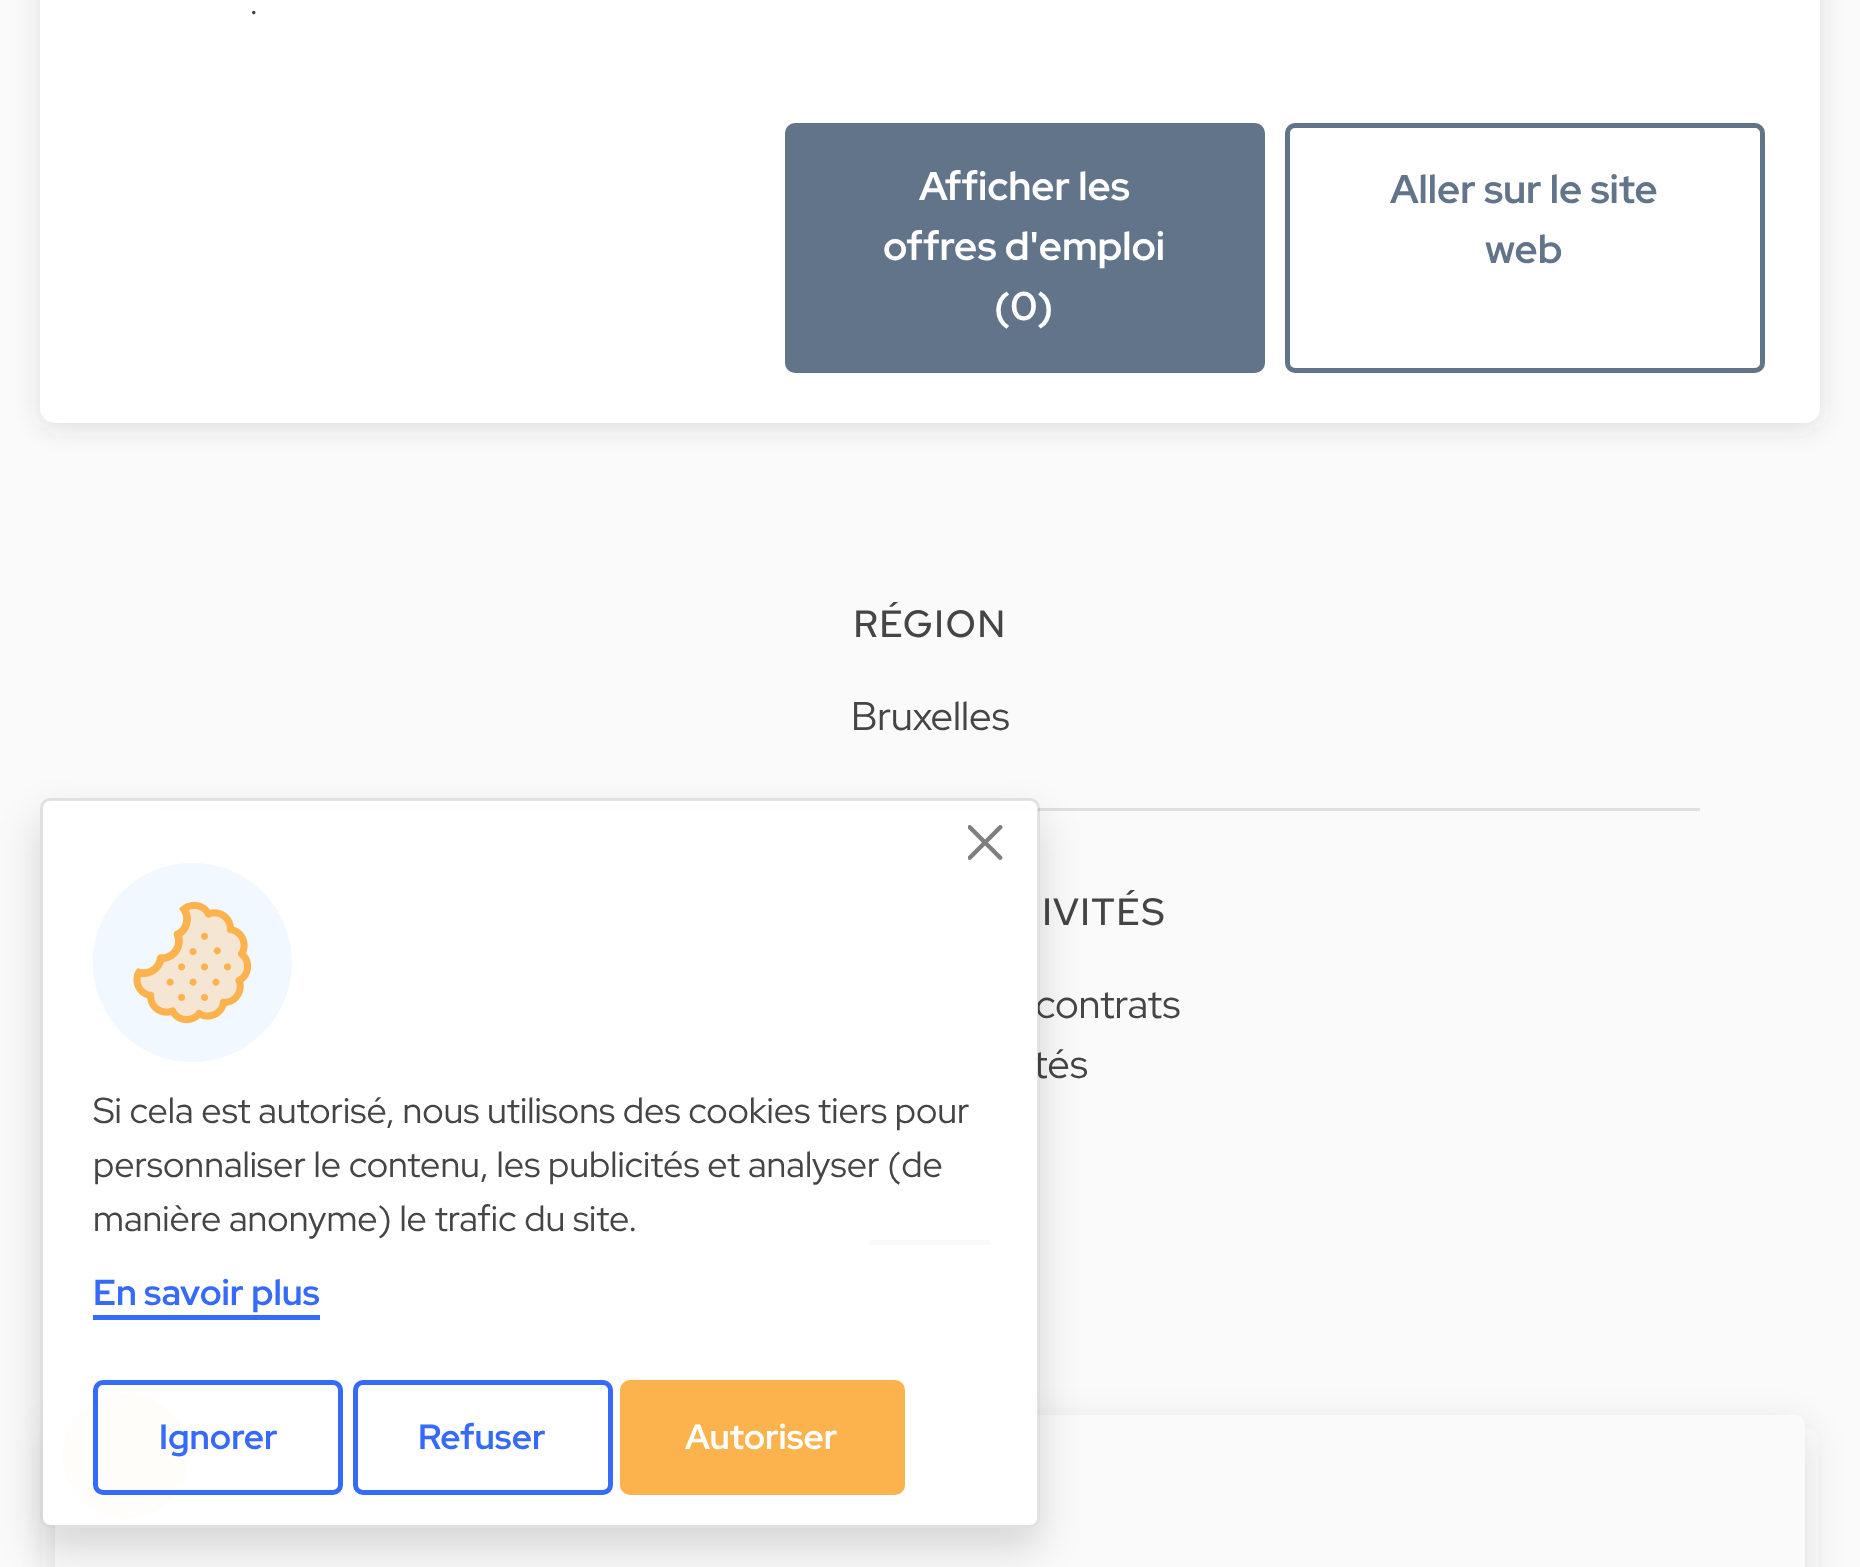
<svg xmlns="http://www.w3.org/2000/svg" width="1860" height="1567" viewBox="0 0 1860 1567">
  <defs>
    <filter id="blur1" x="-50%" y="-200%" width="200%" height="500%"><feGaussianBlur stdDeviation="12.5"/></filter>
    <clipPath id="clip1"><path d="M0 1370H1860V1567H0ZM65 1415H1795C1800.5 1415 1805 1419.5 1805 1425V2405C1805 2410.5 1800.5 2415 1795 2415H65C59.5 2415 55 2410.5 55 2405V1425C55 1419.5 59.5 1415 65 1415Z" clip-rule="evenodd"/></clipPath>
    <filter id="blur2" x="-50%" y="-200%" width="200%" height="500%"><feGaussianBlur stdDeviation="19"/></filter>
    <clipPath id="clip2"><path d="M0 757H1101V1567H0ZM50 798H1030C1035.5 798 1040 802.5 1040 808V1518C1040 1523.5 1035.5 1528 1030 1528H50C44.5 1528 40 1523.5 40 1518V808C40 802.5 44.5 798 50 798Z" clip-rule="evenodd"/></clipPath>
    <filter id="blur3" x="-50%" y="-200%" width="200%" height="500%"><feGaussianBlur stdDeviation="20"/></filter>
  </defs>
  <rect width="100%" height="100%" fill="#fafafa"/>
  <rect x="40" y="-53" width="1780" height="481" rx="15" fill="#454545" fill-opacity="0.15" filter="url(#blur1)"/>
  <rect x="40" y="-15" width="1780" height="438" rx="15" fill="#ffffff"/>
  <text x="248" y="14" font-family="Red Hat Display" font-size="46" font-weight="300" fill="#454545">.</text>
  <rect x="785" y="123" width="480" height="250" rx="10" fill="#62748a"/>
  <text x="919" y="200" font-family="Red Hat Display" font-size="40" font-weight="bold" fill="#ffffff">Afficher les</text>
  <text x="883" y="260" font-family="Red Hat Display" font-size="40" font-weight="bold" fill="#ffffff">offres d'emploi</text>
  <text x="994" y="320" font-family="Red Hat Display" font-size="40" font-weight="bold" fill="#ffffff">(0)</text>
  <rect x="1287.5" y="125.5" width="475" height="245" rx="7.5" fill="none" stroke="#62748a" stroke-width="5"/>
  <text x="1390" y="203" font-family="Red Hat Display" font-size="40" font-weight="bold" fill="#62748a">Aller sur le site</text>
  <text x="1485" y="263" font-family="Red Hat Display" font-size="40" font-weight="bold" fill="#62748a">web</text>
  <rect x="160" y="808" width="1540" height="3" fill="#dfdfdf"/>
  <text x="853" y="637" font-family="Red Hat Text" font-size="38" font-weight="500" letter-spacing="1" fill="#454545">RÉGION</text>
  <text x="851" y="730" font-family="Red Hat Display" font-size="40" fill="#454545">Bruxelles</text>
  <text x="1042" y="925" font-family="Red Hat Text" font-size="38" font-weight="500" letter-spacing="1" fill="#454545">IVITÉS</text>
  <text x="1035" y="1018" font-family="Red Hat Display" font-size="40" fill="#454545">contrats</text>
  <text x="1033" y="1078" font-family="Red Hat Display" font-size="40" fill="#454545">tés</text>
  <path d="M992 1245H868L870 1240H990Z" fill="#366af8"/>
  <g clip-path="url(#clip1)">
    <rect x="55" y="1428" width="1750" height="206" rx="10" fill="#454545" fill-opacity="0.15" filter="url(#blur2)"/>
  </g>
  <circle cx="125.5" cy="1455.5" r="60" fill="#fcb24d" stroke="#fcb24d" stroke-width="5"/>
  <g clip-path="url(#clip2)">
    <rect x="40" y="818" width="1000" height="730" rx="10" fill="#000000" fill-opacity="0.15" filter="url(#blur3)"/>
  </g>
  <rect x="43" y="800" width="995" height="725" rx="8" fill="#ffffff" fill-opacity="0.97"/>
  <rect x="41.5" y="799.5" width="997" height="727" rx="8.5" fill="none" stroke="#000000" stroke-opacity="0.1" stroke-width="3"/>
  <image x="968" y="825" width="35" height="35" href="img1.png"/>
  <image x="93" y="863" width="199" height="199" href="img2.png"/>
  <text x="93" y="1123" font-family="Red Hat Display" font-size="36" fill="#454545">Si cela est autorisé, nous utilisons des cookies tiers pour</text>
  <text x="93" y="1177" font-family="Red Hat Display" font-size="36" fill="#454545">personnaliser le contenu, les publicités et analyser (de</text>
  <text x="93" y="1231" font-family="Red Hat Display" font-size="36" fill="#454545">manière anonyme) le trafic du site.</text>
  <text x="93" y="1305" font-family="Red Hat Display" font-size="36" font-weight="bold" fill="#366af8">En savoir plus</text>
  <rect x="93" y="1315" width="227" height="5" fill="#366af8"/>
  <rect x="95.5" y="1382.5" width="245" height="110" rx="7.5" fill="none" stroke="#366af8" stroke-width="5"/>
  <text x="159" y="1449" font-family="Red Hat Display" font-size="35" font-weight="bold" fill="#366af8">Ignorer</text>
  <rect x="355.5" y="1382.5" width="255" height="110" rx="7.5" fill="none" stroke="#366af8" stroke-width="5"/>
  <text x="418" y="1449" font-family="Red Hat Display" font-size="35" font-weight="bold" fill="#366af8">Refuser</text>
  <rect x="622.5" y="1382.5" width="280" height="110" rx="7.5" fill="#fcb24d" stroke="#fcb24d" stroke-width="5"/>
  <text x="685" y="1449" font-family="Red Hat Display" font-size="35" font-weight="bold" fill="#ffffff">Autoriser</text>
</svg>
